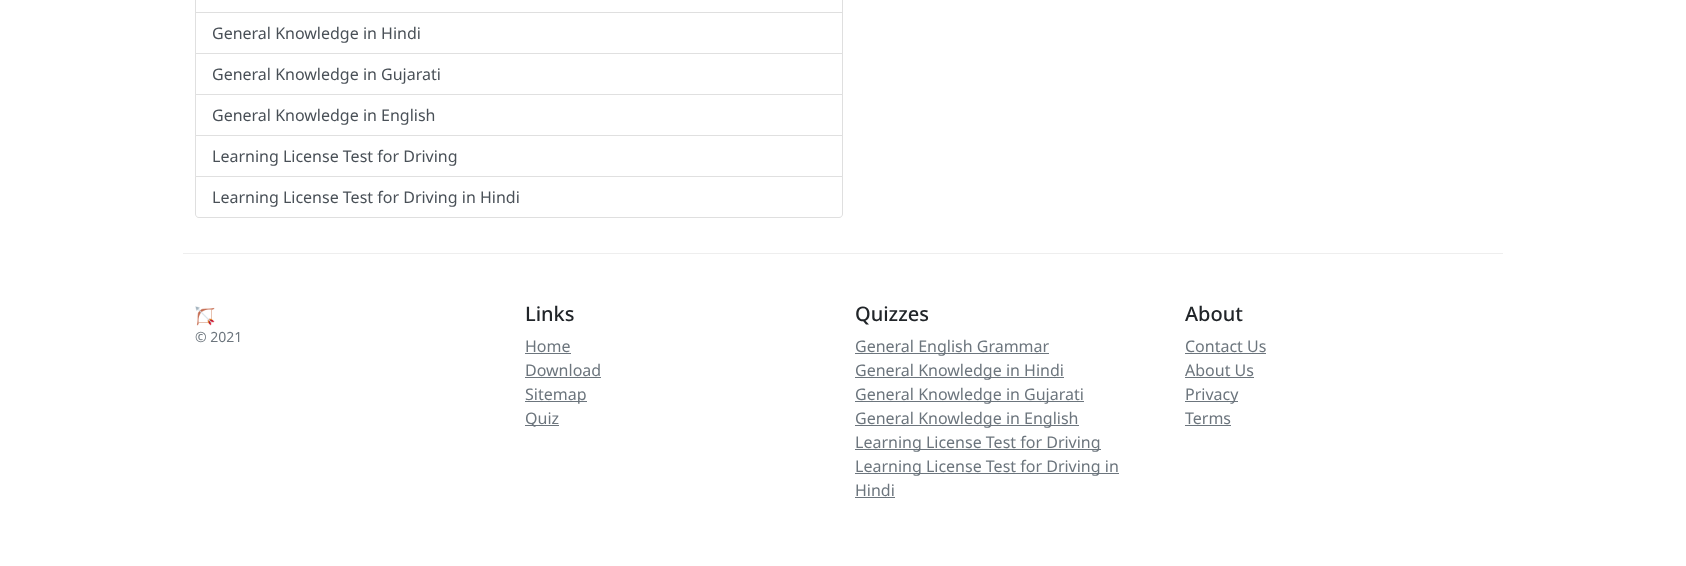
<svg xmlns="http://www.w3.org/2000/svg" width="1686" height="566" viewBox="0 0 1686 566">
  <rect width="100%" height="100%" fill="#ffffff"/>
  <rect x="183" y="253" width="1320" height="1" fill="#eeeeee"/>
  <rect x="195.5" y="-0.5" width="647" height="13" fill="none" stroke="#dfdfdf"/>
  <path d="M843 13V54L842 53V13Z" fill="#dfdfdf"/>
  <path d="M843 54H195L196 53H842Z" fill="#000000" fill-opacity="0.12"/>
  <path d="M195 54V13H196V53Z" fill="#000000" fill-opacity="0.12"/>
  <text x="212" y="39" font-family="Noto Sans" font-size="16" fill="#495057">General Knowledge in Hindi</text>
  <path d="M843 54V95L842 94V54Z" fill="#dfdfdf"/>
  <path d="M843 95H195L196 94H842Z" fill="#000000" fill-opacity="0.12"/>
  <path d="M195 95V54H196V94Z" fill="#000000" fill-opacity="0.12"/>
  <text x="212" y="80" font-family="Noto Sans" font-size="16" fill="#495057">General Knowledge in Gujarati</text>
  <path d="M843 95V136L842 135V95Z" fill="#dfdfdf"/>
  <path d="M843 136H195L196 135H842Z" fill="#000000" fill-opacity="0.12"/>
  <path d="M195 136V95H196V135Z" fill="#000000" fill-opacity="0.12"/>
  <text x="212" y="121" font-family="Noto Sans" font-size="16" fill="#495057">General Knowledge in English</text>
  <path d="M843 136V177L842 176V136Z" fill="#dfdfdf"/>
  <path d="M843 177H195L196 176H842Z" fill="#000000" fill-opacity="0.12"/>
  <path d="M195 177V136H196V176Z" fill="#000000" fill-opacity="0.12"/>
  <text x="212" y="162" font-family="Noto Sans" font-size="16" fill="#495057">Learning License Test for Driving</text>
  <path d="M195 177H843V214C843 216 841 218 839 218H199C197 218 195 216 195 214ZM196 177H842V214C842 216 841 217 839 217H199C197 217 196 216 196 214Z" fill="#dfdfdf" fill-rule="evenodd"/>
  <text x="212" y="203" font-family="Noto Sans" font-size="16" fill="#495057">Learning License Test for Driving in Hindi</text>
  <image x="195" y="306" width="20" height="20" href="img1.png"/>
  <text x="195" y="342" font-family="Noto Sans" font-size="14" fill="#6c757d">© 2021</text>
  <text x="525" y="321" font-family="Noto Sans" font-size="20" font-weight="500" fill="#212529">Links</text>
  <text x="525" y="352" font-family="Noto Sans" font-size="16" fill="#6c757d">Home</text>
  <rect x="525" y="353" width="46" height="1" fill="#6c757d"/>
  <text x="525" y="376" font-family="Noto Sans" font-size="16" fill="#6c757d">Download</text>
  <rect x="525" y="377" width="76" height="1" fill="#6c757d"/>
  <rect x="525" y="401" width="62" height="1" fill="#6c757d"/>
  <text x="525" y="400" font-family="Noto Sans" font-size="16" fill="#6c757d">Sitemap</text>
  <rect x="525" y="425" width="34" height="1" fill="#6c757d"/>
  <text x="525" y="424" font-family="Noto Sans" font-size="16" fill="#6c757d">Quiz</text>
  <text x="855" y="321" font-family="Noto Sans" font-size="20" font-weight="500" fill="#212529">Quizzes</text>
  <rect x="855" y="353" width="194" height="1" fill="#6c757d"/>
  <text x="855" y="352" font-family="Noto Sans" font-size="16" fill="#6c757d">General English Grammar</text>
  <rect x="855" y="377" width="209" height="1" fill="#6c757d"/>
  <text x="855" y="376" font-family="Noto Sans" font-size="16" fill="#6c757d">General Knowledge in Hindi</text>
  <rect x="855" y="401" width="229" height="1" fill="#6c757d"/>
  <text x="855" y="400" font-family="Noto Sans" font-size="16" fill="#6c757d">General Knowledge in Gujarati</text>
  <rect x="855" y="425" width="224" height="1" fill="#6c757d"/>
  <text x="855" y="424" font-family="Noto Sans" font-size="16" fill="#6c757d">General Knowledge in English</text>
  <rect x="855" y="449" width="246" height="1" fill="#6c757d"/>
  <text x="855" y="448" font-family="Noto Sans" font-size="16" fill="#6c757d">Learning License Test for Driving</text>
  <rect x="855" y="473" width="264" height="1" fill="#6c757d"/>
  <text x="855" y="472" font-family="Noto Sans" font-size="16" fill="#6c757d">Learning License Test for Driving in</text>
  <text x="855" y="496" font-family="Noto Sans" font-size="16" fill="#6c757d">Hindi</text>
  <rect x="855" y="497" width="40" height="1" fill="#6c757d"/>
  <text x="1185" y="321" font-family="Noto Sans" font-size="20" font-weight="500" fill="#212529">About</text>
  <text x="1185" y="352" font-family="Noto Sans" font-size="16" fill="#6c757d">Contact Us</text>
  <rect x="1185" y="353" width="81" height="1" fill="#6c757d"/>
  <text x="1185" y="376" font-family="Noto Sans" font-size="16" fill="#6c757d">About Us</text>
  <rect x="1185" y="377" width="69" height="1" fill="#6c757d"/>
  <rect x="1185" y="401" width="53" height="1" fill="#6c757d"/>
  <text x="1185" y="400" font-family="Noto Sans" font-size="16" fill="#6c757d">Privacy</text>
  <text x="1185" y="424" font-family="Noto Sans" font-size="16" fill="#6c757d">Terms</text>
  <rect x="1185" y="425" width="46" height="1" fill="#6c757d"/>
</svg>
